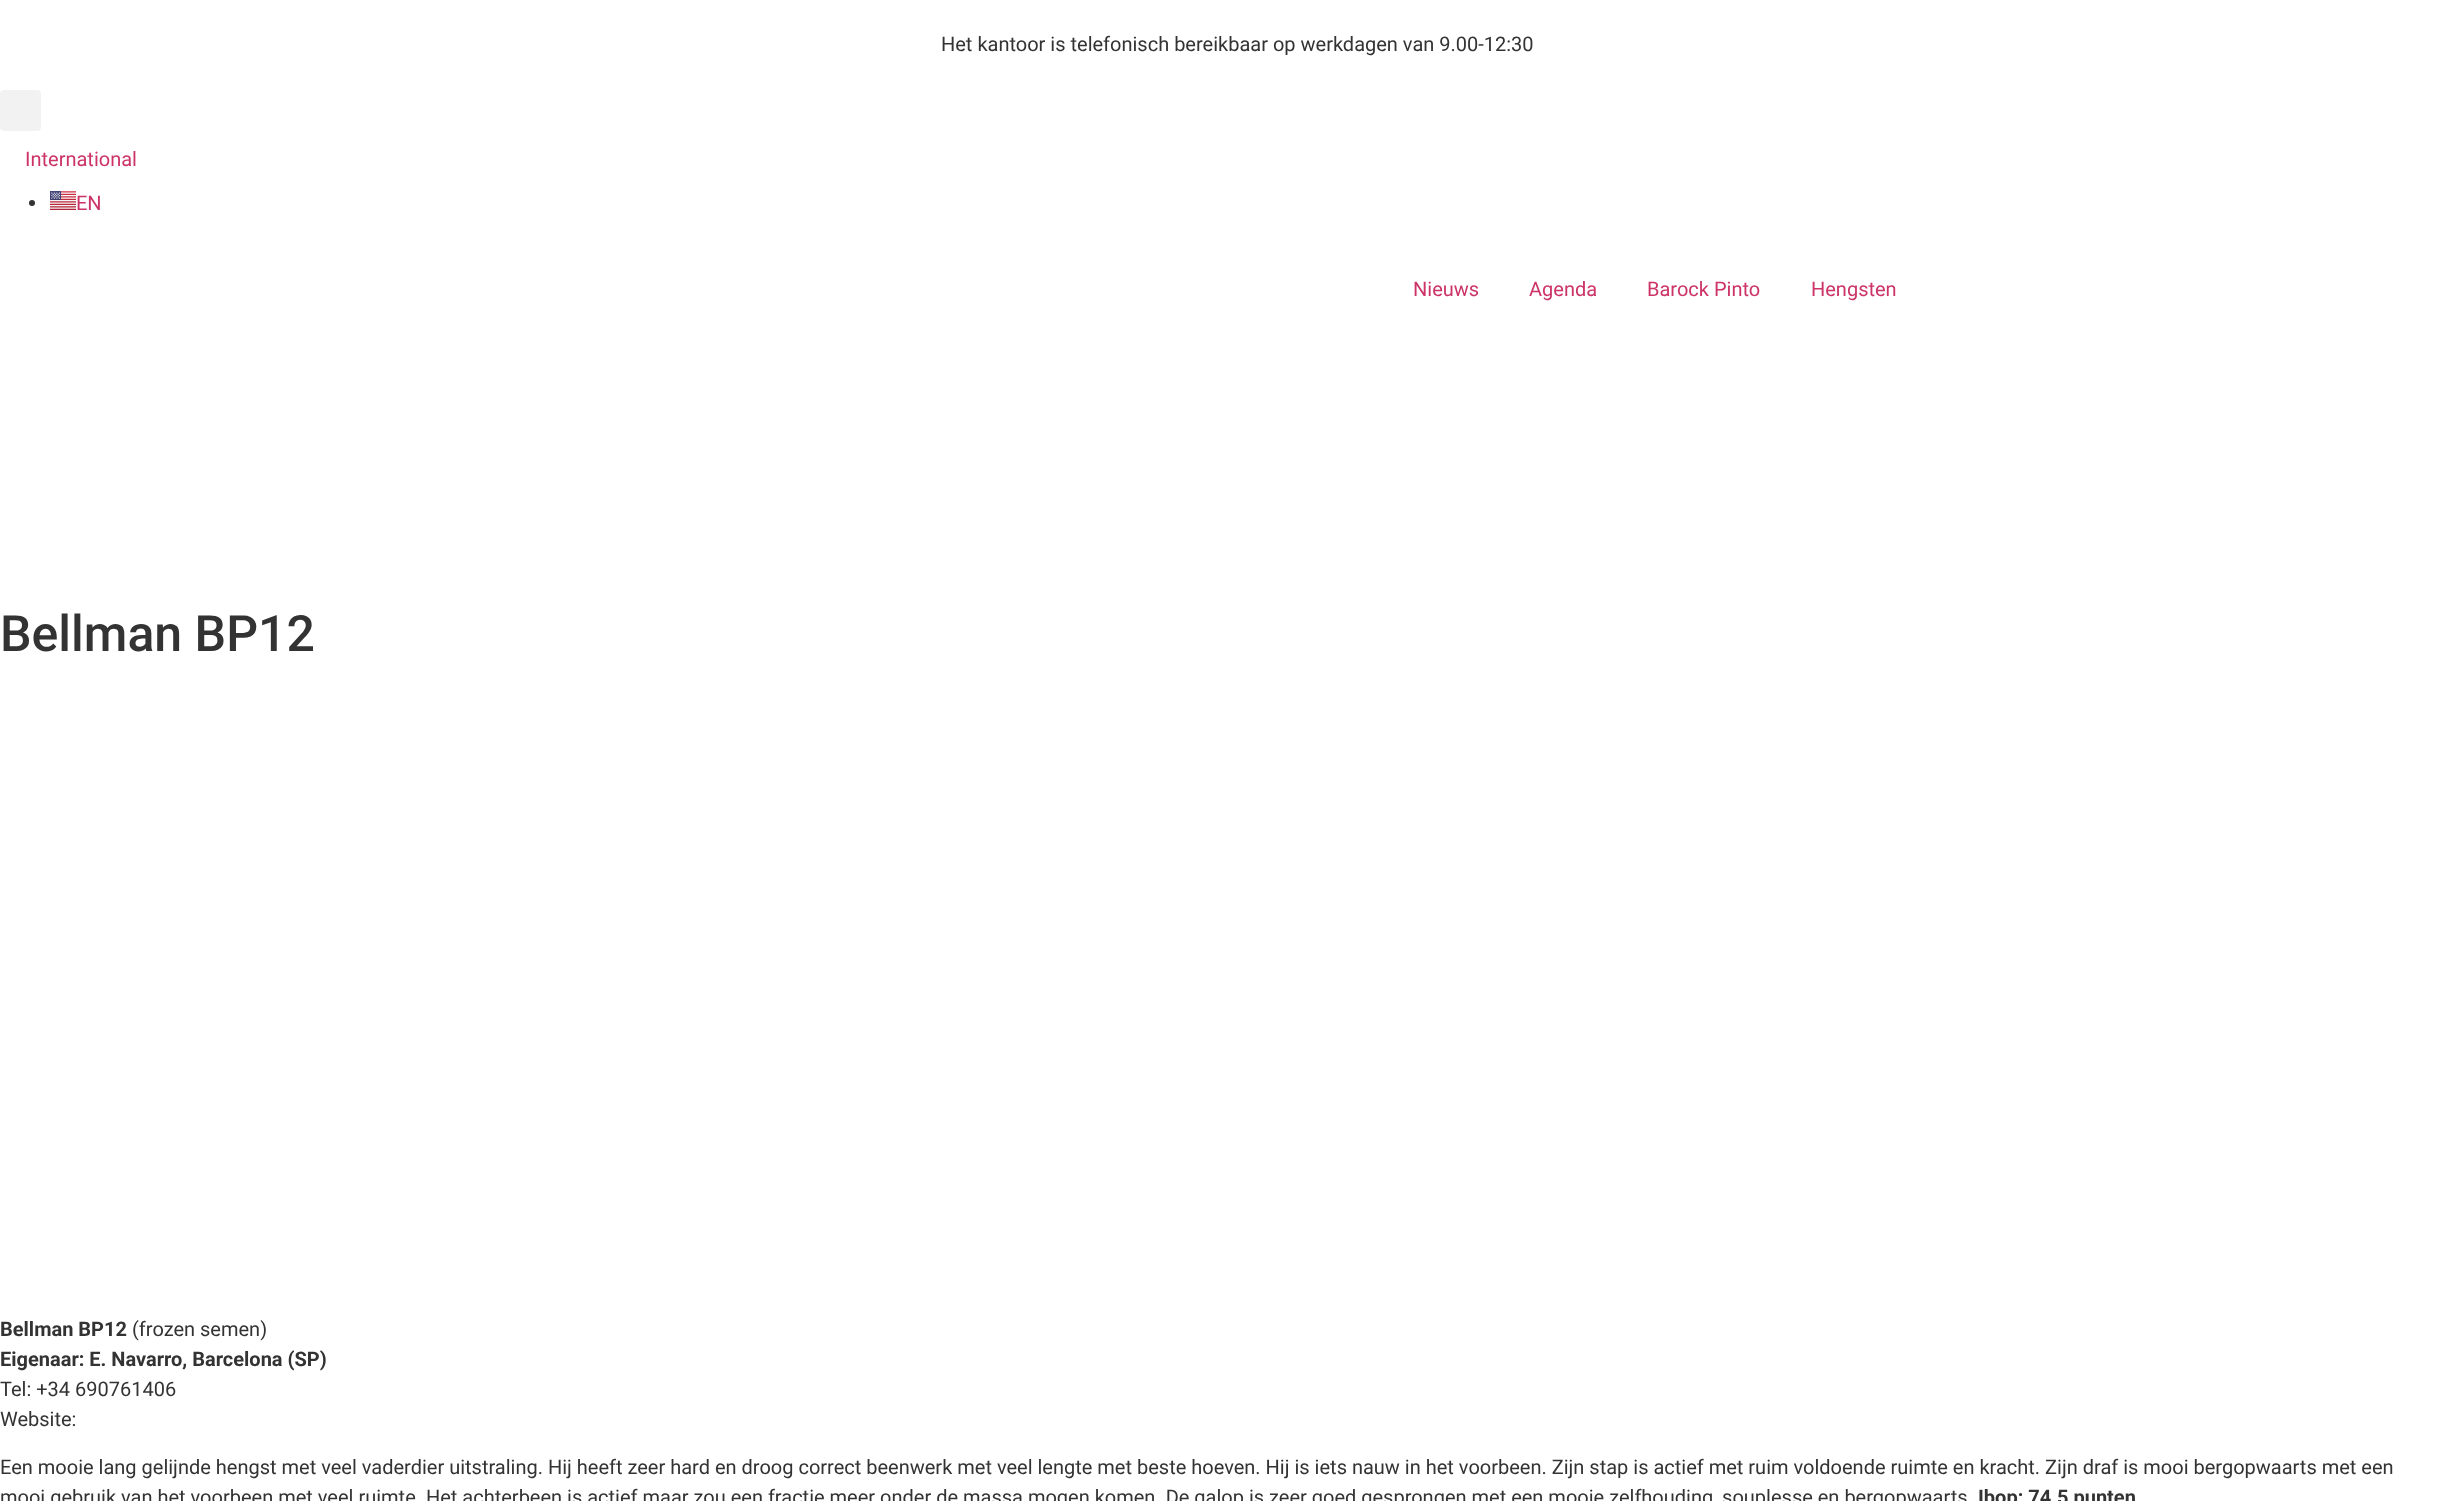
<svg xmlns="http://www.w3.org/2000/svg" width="2442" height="1501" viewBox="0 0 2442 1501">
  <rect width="100%" height="100%" fill="#ffffff"/>
  <text x="941" y="51" font-family="Roboto" font-size="20" fill="#333333">Het kantoor is telefonisch bereikbaar op werkdagen van 9.00-12:30</text>
  <rect x="0" y="90" width="41" height="41" rx="4" fill="#f2f2f2"/>
  <text x="25" y="166" font-family="Roboto" font-size="20" fill="#cc3366">International</text>
  <circle cx="32" cy="203" r="3" fill="#333333"/>
  <image x="50" y="191" width="26" height="19" href="img1.png"/>
  <text x="76" y="210" font-family="Roboto" font-size="20" fill="#cc3366">EN</text>
  <text x="1413" y="296" font-family="Roboto" font-size="20" fill="#cc3366">Nieuws</text>
  <text x="1529" y="296" font-family="Roboto" font-size="20" fill="#cc3366">Agenda</text>
  <text x="1647" y="296" font-family="Roboto" font-size="20" fill="#cc3366">Barock Pinto</text>
  <text x="1811" y="296" font-family="Roboto" font-size="20" fill="#cc3366">Hengsten</text>
  <text x="0" y="651" font-family="Roboto" font-size="50" font-weight="500" fill="#333333">Bellman BP12</text>
  <text x="0" y="1336" font-family="Roboto" font-size="20" font-weight="bold" fill="#333333">Bellman BP12</text>
  <text x="132" y="1336" font-family="Roboto" font-size="20" fill="#333333">(frozen semen)</text>
  <text x="0" y="1366" font-family="Roboto" font-size="20" font-weight="bold" fill="#333333">Eigenaar: E. Navarro, Barcelona (SP)</text>
  <text x="0" y="1396" font-family="Roboto" font-size="20" fill="#333333">Tel: +34 690761406</text>
  <text x="0" y="1426" font-family="Roboto" font-size="20" fill="#333333">Website:</text>
  <text x="0" y="1474" font-family="Roboto" font-size="20" fill="#333333">Een mooie lang gelijnde hengst met veel vaderdier uitstraling. Hij heeft zeer hard en droog correct beenwerk met veel lengte met beste hoeven. Hij is iets nauw in het voorbeen. Zijn stap is actief met ruim voldoende ruimte en kracht. Zijn draf is mooi bergopwaarts met een</text>
  <text x="0" y="1504" font-family="Roboto" font-size="20" fill="#333333">mooi gebruik van het voorbeen met veel ruimte. Het achterbeen is actief maar zou een fractie meer onder de massa mogen komen. De galop is zeer goed gesprongen met een mooie zelfhouding, souplesse en bergopwaarts</text>
  <text x="1978" y="1504" font-family="Roboto" font-size="20" font-weight="bold" fill="#333333">Ibop: 74.5 punten</text>
</svg>
